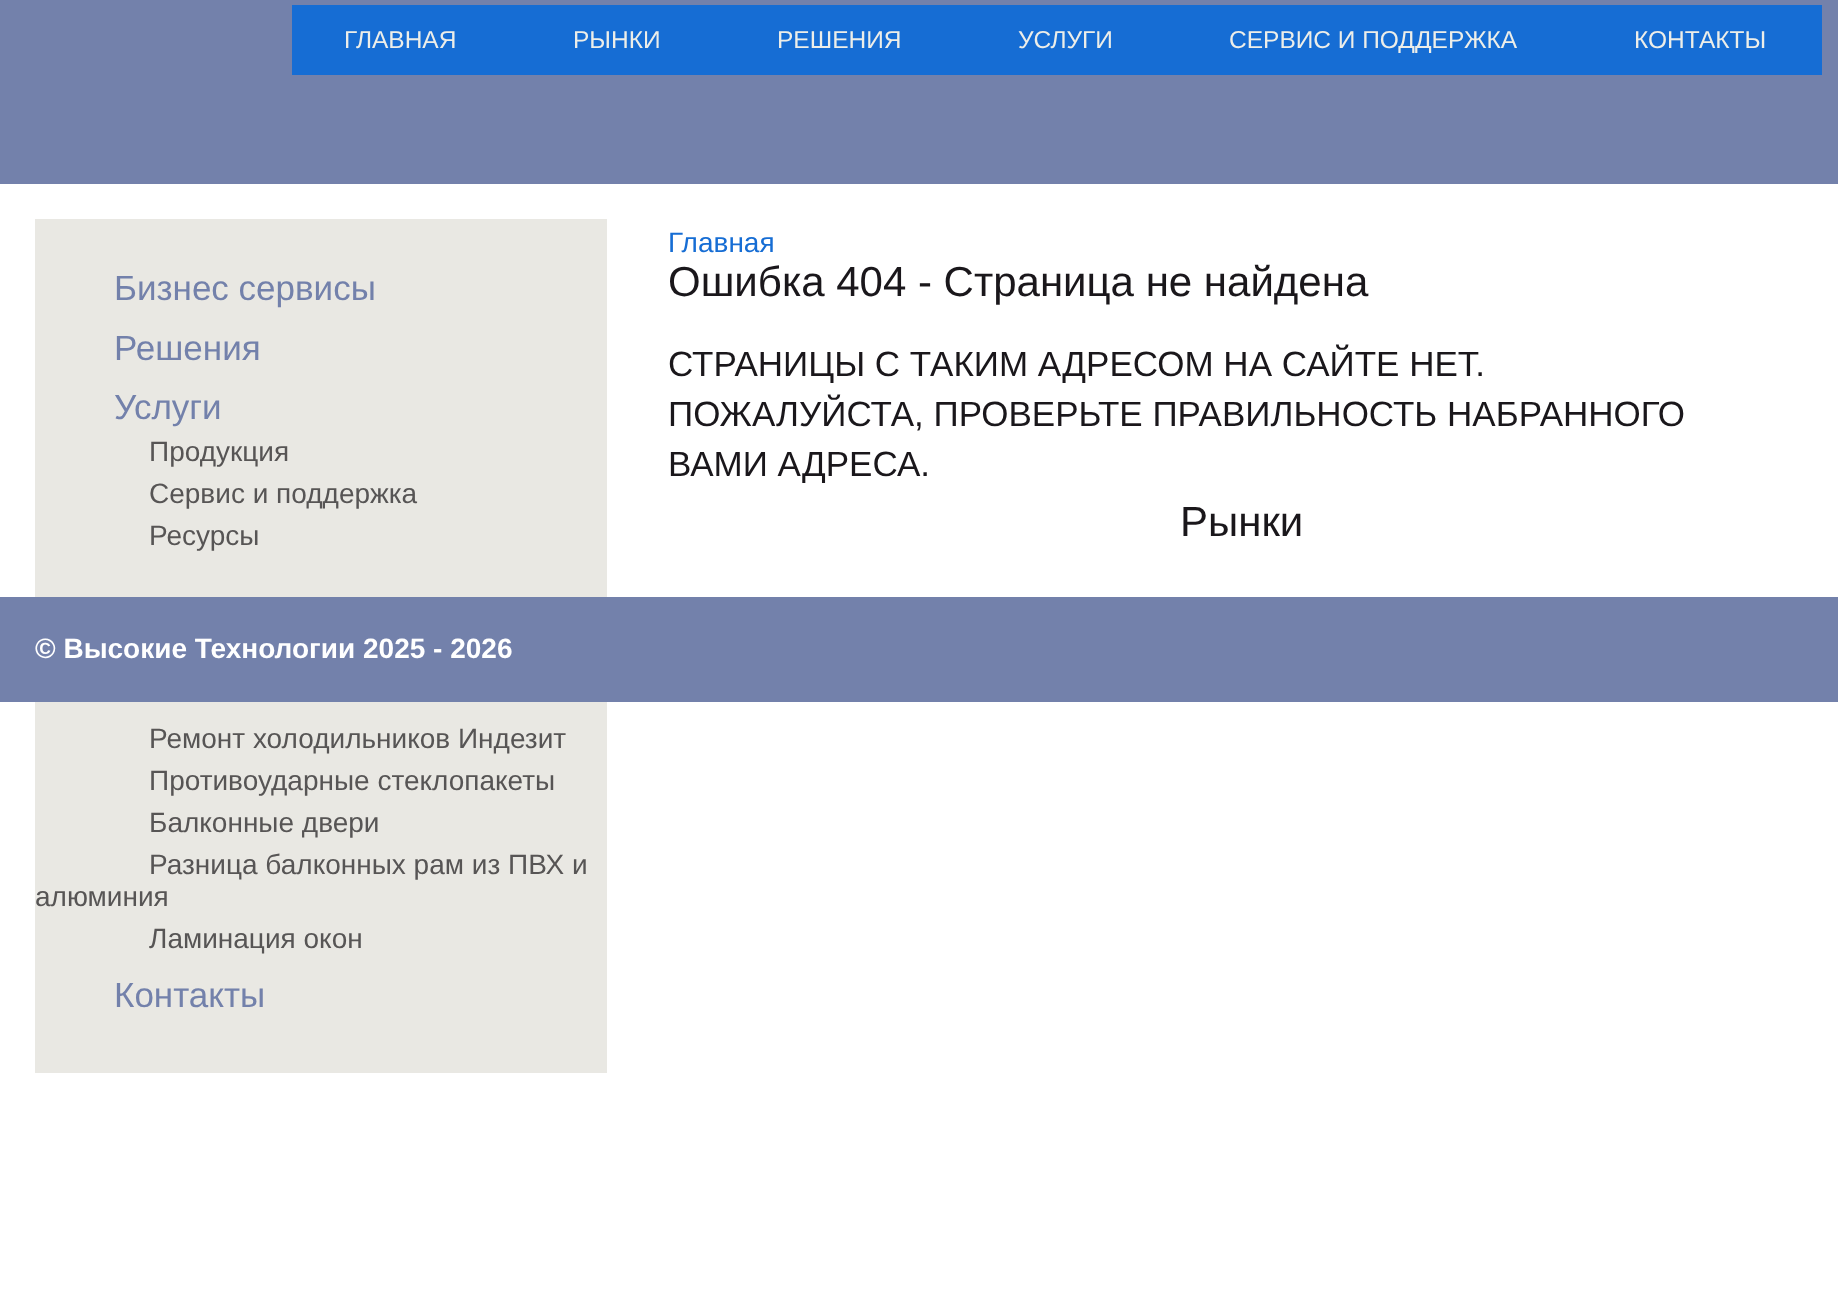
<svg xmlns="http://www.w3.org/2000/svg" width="1838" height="1308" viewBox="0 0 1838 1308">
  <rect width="100%" height="100%" fill="#ffffff"/>
  <rect x="0" y="0" width="1838" height="184" fill="#7381ab"/>
  <rect x="292" y="5" width="1530" height="70" fill="#166dd4"/>
  <text x="344" y="48" font-family="Liberation Sans" font-size="24.5" fill="#edeee9">ГЛАВНАЯ</text>
  <text x="573" y="48" font-family="Liberation Sans" font-size="24.5" fill="#edeee9">РЫНКИ</text>
  <text x="777" y="48" font-family="Liberation Sans" font-size="24.5" fill="#edeee9">РЕШЕНИЯ</text>
  <text x="1018" y="48" font-family="Liberation Sans" font-size="24.5" fill="#edeee9">УСЛУГИ</text>
  <text x="1229" y="48" font-family="Liberation Sans" font-size="24.5" fill="#edeee9">СЕРВИС И ПОДДЕРЖКА</text>
  <text x="1634" y="48" font-family="Liberation Sans" font-size="24.5" fill="#edeee9">КОНТАКТЫ</text>
  <rect x="35" y="219" width="572" height="854" fill="#e9e8e3"/>
  <text x="114" y="300" font-family="Liberation Sans" font-size="35" fill="#7381ab">Бизнес сервисы</text>
  <text x="114" y="360" font-family="Liberation Sans" font-size="35" fill="#7381ab">Решения</text>
  <text x="114" y="419" font-family="Liberation Sans" font-size="35" fill="#7381ab">Услуги</text>
  <text x="149" y="461" font-family="Liberation Sans" font-size="28" fill="#575555">Продукция</text>
  <text x="149" y="503" font-family="Liberation Sans" font-size="28" fill="#575555">Сервис и поддержка</text>
  <text x="149" y="545" font-family="Liberation Sans" font-size="28" fill="#575555">Ресурсы</text>
  <text x="149" y="748" font-family="Liberation Sans" font-size="28" fill="#575555">Ремонт холодильников Индезит</text>
  <text x="149" y="790" font-family="Liberation Sans" font-size="28" fill="#575555">Противоударные стеклопакеты</text>
  <text x="149" y="832" font-family="Liberation Sans" font-size="28" fill="#575555">Балконные двери</text>
  <text x="149" y="874" font-family="Liberation Sans" font-size="28" fill="#575555">Разница балконных рам из ПВХ и</text>
  <text x="35" y="906" font-family="Liberation Sans" font-size="28" fill="#575555">алюминия</text>
  <text x="149" y="948" font-family="Liberation Sans" font-size="28" fill="#575555">Ламинация окон</text>
  <text x="114" y="1007" font-family="Liberation Sans" font-size="35" fill="#7381ab">Контакты</text>
  <text x="668" y="252" font-family="Liberation Sans" font-size="28" fill="#166dd4">Главная</text>
  <text x="668" y="296" font-family="Liberation Sans" font-size="42" fill="#1a171b">Ошибка 404 - Страница не найдена</text>
  <text x="668" y="376" font-family="Liberation Sans" font-size="35" fill="#1a171b">СТРАНИЦЫ С ТАКИМ АДРЕСОМ НА САЙТЕ НЕТ.</text>
  <text x="668" y="426" font-family="Liberation Sans" font-size="35" fill="#1a171b">ПОЖАЛУЙСТА, ПРОВЕРЬТЕ ПРАВИЛЬНОСТЬ НАБРАННОГО</text>
  <text x="668" y="476" font-family="Liberation Sans" font-size="35" fill="#1a171b">ВАМИ АДРЕСА.</text>
  <text x="1180" y="536" font-family="Liberation Sans" font-size="42" fill="#1a171b">Рынки</text>
  <rect x="0" y="597" width="1838" height="105" fill="#7381ab"/>
  <text x="35" y="658" font-family="Liberation Sans" font-size="28" font-weight="bold" fill="#ffffff">© Высокие Технологии 2025 - 2026</text>
</svg>
